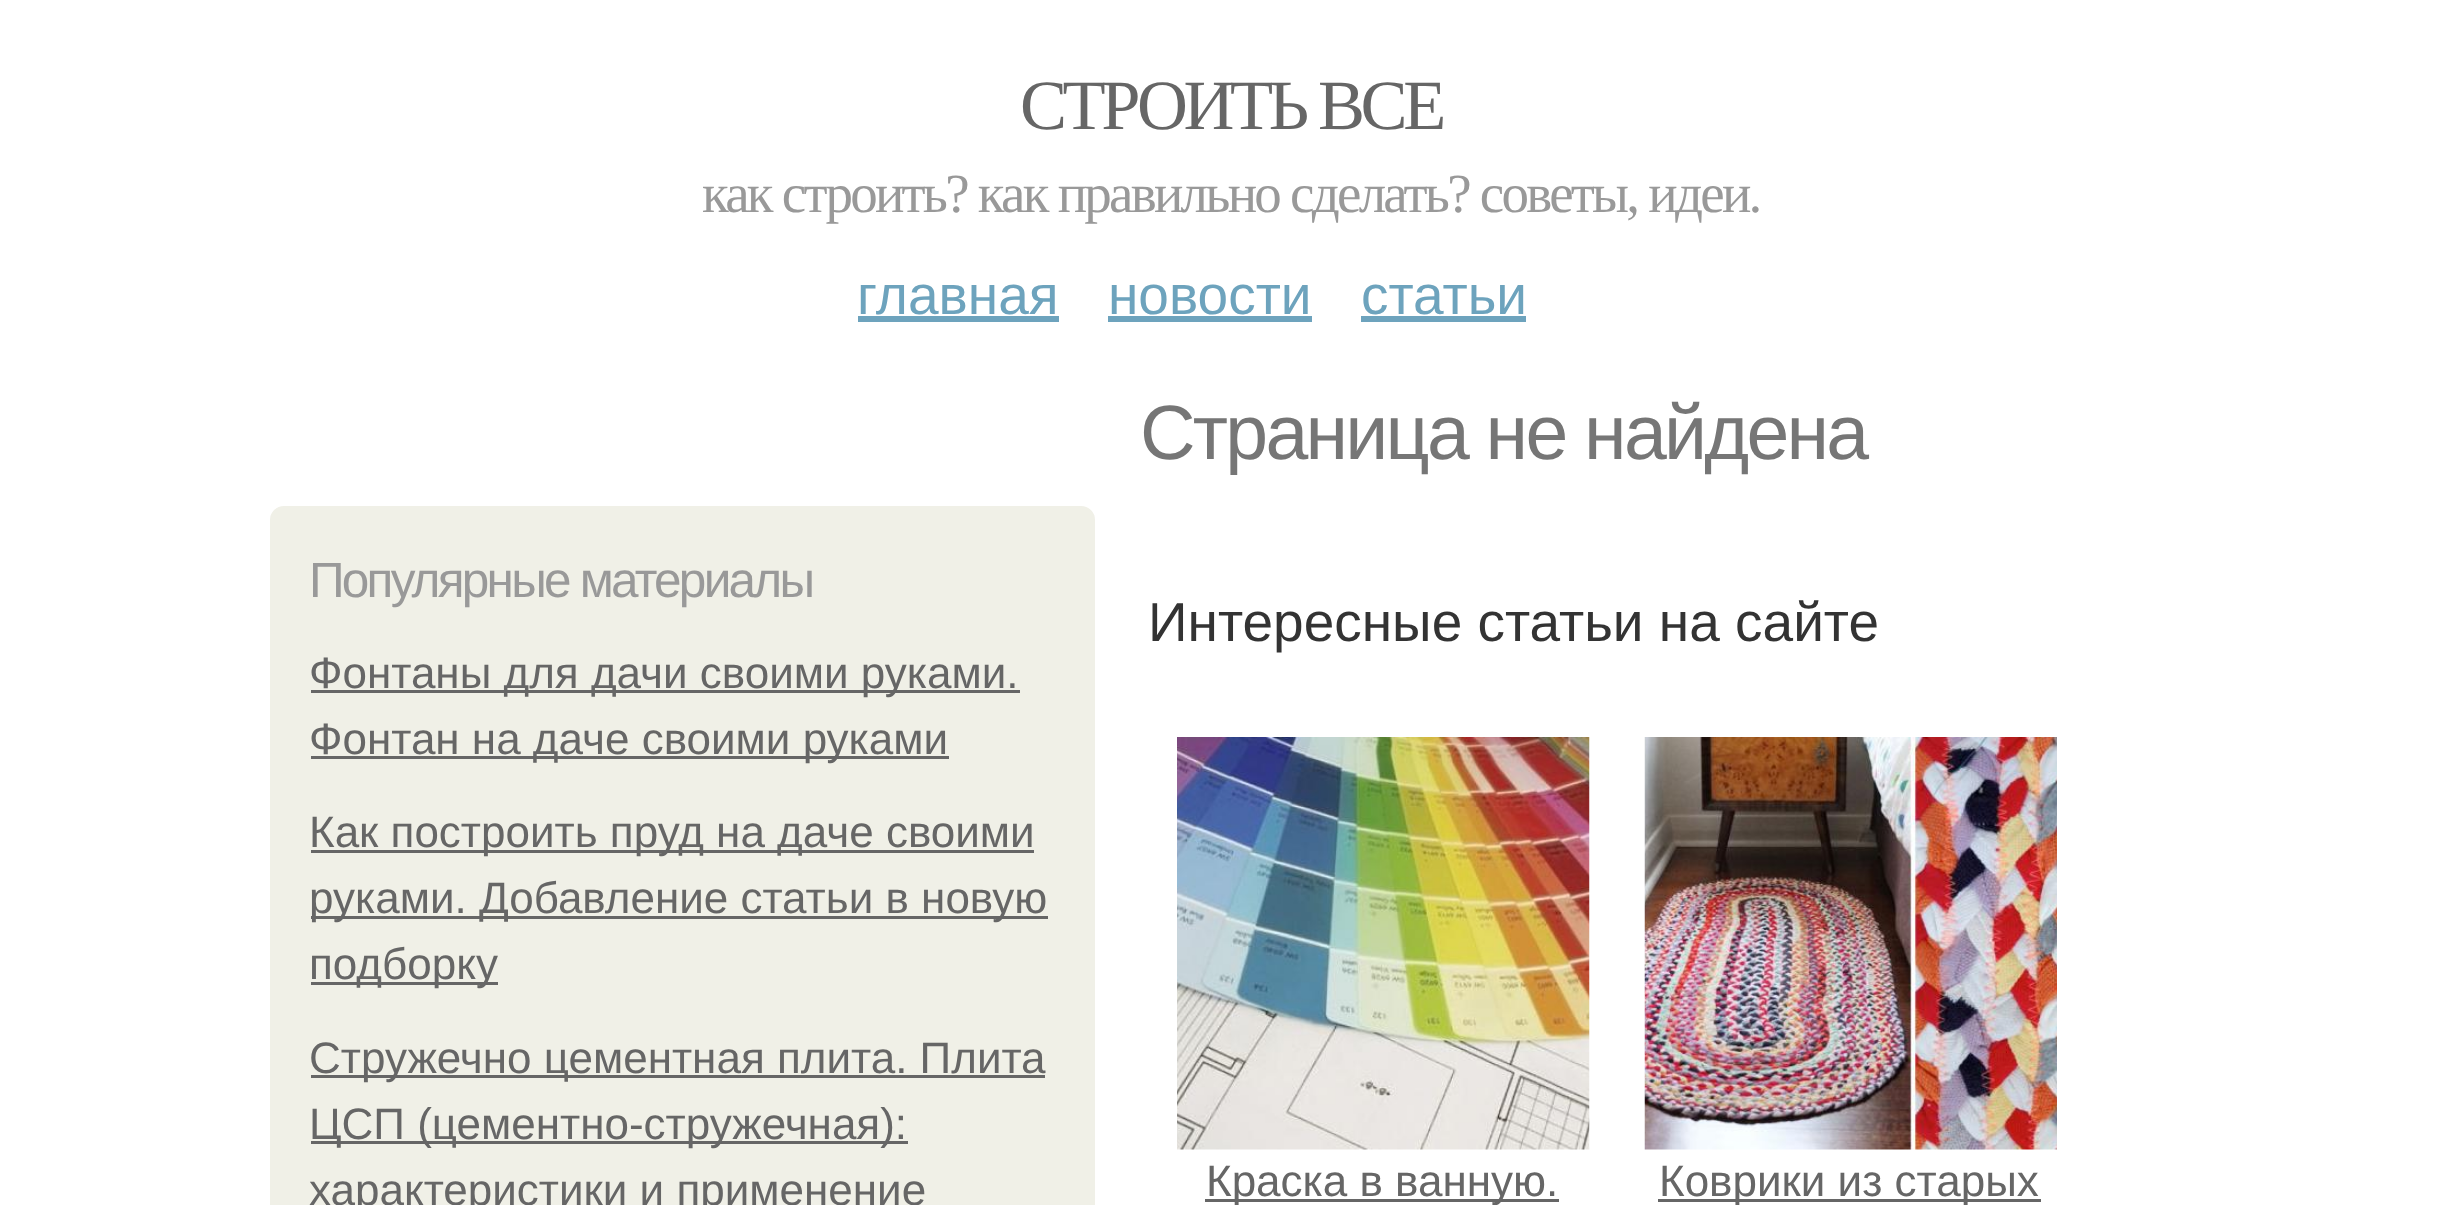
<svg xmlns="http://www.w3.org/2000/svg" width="2460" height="1205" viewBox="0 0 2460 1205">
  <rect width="100%" height="100%" fill="#ffffff"/>
  <text x="1020" y="129" font-family="Liberation Serif" font-size="70.5" letter-spacing="-4.4" fill="#666666">СТРОИТЬ ВСЕ</text>
  <text x="702" y="212" font-family="Liberation Serif" font-size="55" letter-spacing="-2.75" fill="#999999">как строить? как правильно сделать? советы, идеи.</text>
  <text x="857" y="314" font-family="Liberation Sans" font-size="55" fill="#6da3bd">главная</text>
  <rect x="858" y="316" width="201" height="6" fill="#6da3bd"/>
  <text x="1108" y="314" font-family="Liberation Sans" font-size="55" fill="#6da3bd">новости</text>
  <rect x="1108" y="316" width="204" height="6" fill="#6da3bd"/>
  <text x="1361" y="314" font-family="Liberation Sans" font-size="55" fill="#6da3bd">статьи</text>
  <rect x="1361" y="316" width="165" height="6" fill="#6da3bd"/>
  <text x="1140" y="459" font-family="Liberation Sans" font-size="77" letter-spacing="-2.75" fill="#767676">Страница не найдена</text>
  <rect x="270" y="506" width="825" height="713" rx="14" fill="#f0f0e7"/>
  <text x="309" y="597" font-family="Liberation Sans" font-size="49.5" letter-spacing="-2.75" fill="#999999">Популярные материалы</text>
  <rect x="311" y="690" width="709" height="3" fill="#666666"/>
  <text x="309" y="688" font-family="Liberation Sans" font-size="44" fill="#666666">Фонтаны для дачи своими руками.</text>
  <rect x="311" y="756" width="638" height="3" fill="#666666"/>
  <text x="309" y="754" font-family="Liberation Sans" font-size="44" fill="#666666">Фонтан на даче своими руками</text>
  <rect x="311" y="850" width="723" height="3" fill="#666666"/>
  <text x="309" y="847" font-family="Liberation Sans" font-size="44" fill="#666666">Как построить пруд на даче своими</text>
  <rect x="311" y="916" width="737" height="3" fill="#666666"/>
  <text x="309" y="913" font-family="Liberation Sans" font-size="44" fill="#666666">руками. Добавление статьи в новую</text>
  <rect x="311" y="982" width="187" height="3" fill="#666666"/>
  <text x="309" y="979" font-family="Liberation Sans" font-size="44" fill="#666666">подборку</text>
  <rect x="311" y="1075" width="734" height="3" fill="#666666"/>
  <text x="309" y="1073" font-family="Liberation Sans" font-size="44" fill="#666666">Стружечно цементная плита. Плита</text>
  <rect x="311" y="1141" width="597" height="3" fill="#666666"/>
  <text x="309" y="1139" font-family="Liberation Sans" font-size="44" fill="#666666">ЦСП (цементно-стружечная):</text>
  <text x="309" y="1205" font-family="Liberation Sans" font-size="44" fill="#666666">характеристики и применение</text>
  <text x="1148" y="641" font-family="Liberation Sans" font-size="55" fill="#333333">Интересные статьи на сайте</text>
  <image x="1177" y="737" width="413" height="413" href="img1.png"/>
  <rect x="1205" y="1199" width="354" height="3" fill="#666666"/>
  <text x="1206" y="1196" font-family="Liberation Sans" font-size="44" fill="#666666">Краска в ванную.</text>
  <image x="1644" y="737" width="413" height="413" href="img2.png"/>
  <rect x="1658" y="1199" width="383" height="3" fill="#666666"/>
  <text x="1659" y="1196" font-family="Liberation Sans" font-size="44" fill="#666666">Коврики из старых</text>
</svg>
